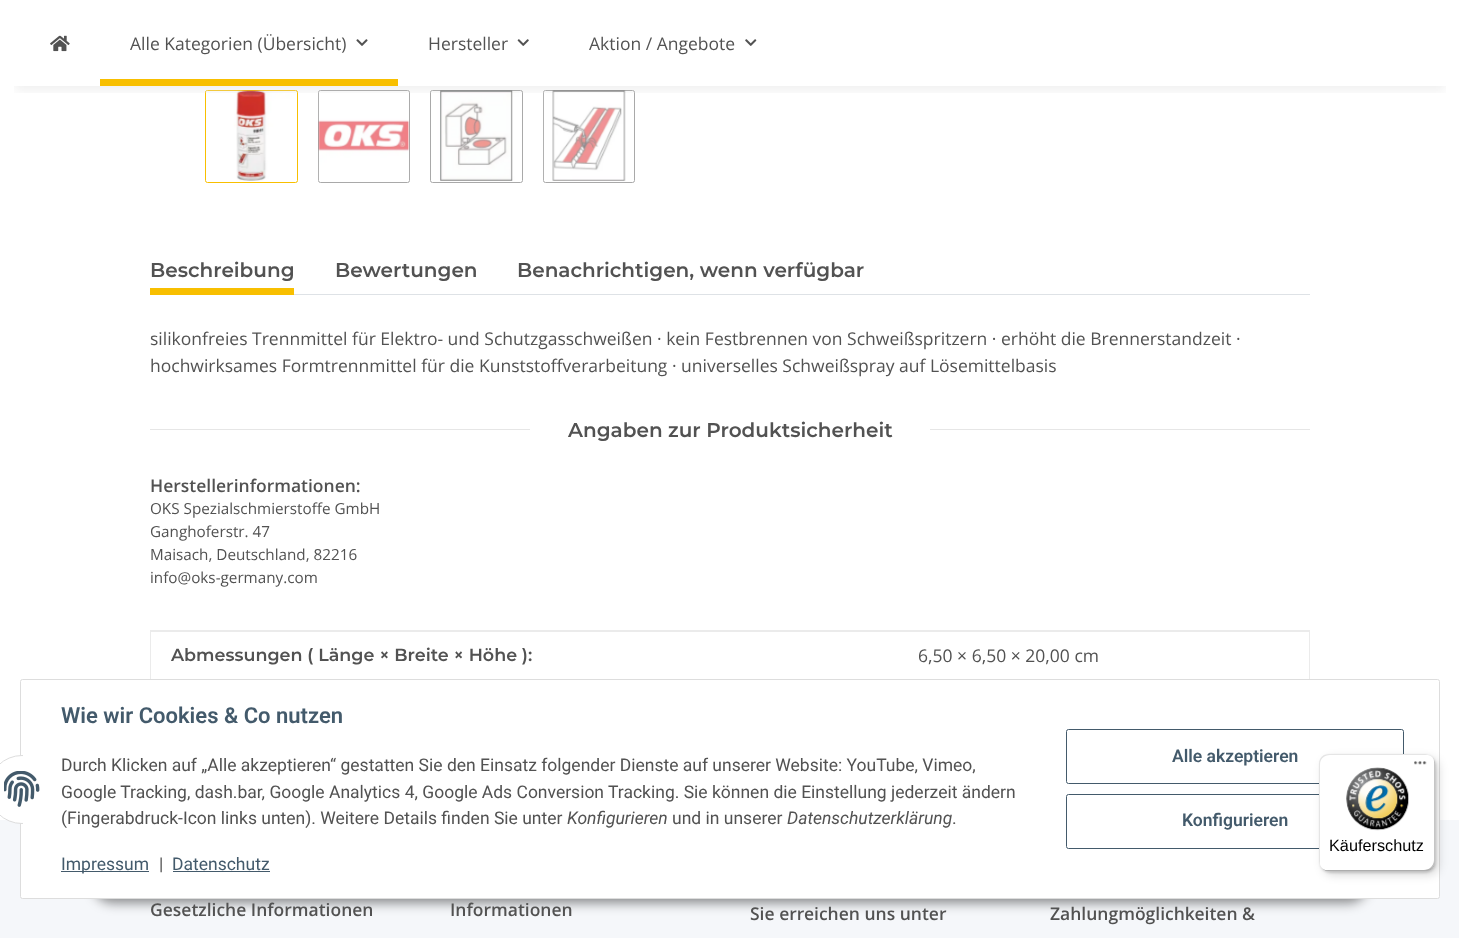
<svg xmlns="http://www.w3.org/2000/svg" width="1459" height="938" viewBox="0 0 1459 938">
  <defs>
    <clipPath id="clip1"><rect x="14" y="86" width="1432" height="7"/></clipPath>
    <filter id="blur1" x="-50%" y="-200%" width="200%" height="500%"><feGaussianBlur stdDeviation="5.5"/></filter>
    <filter id="blur2" x="-50%" y="-200%" width="200%" height="500%"><feGaussianBlur stdDeviation="6"/></filter>
    <filter id="blur3" x="-50%" y="-200%" width="200%" height="500%"><feGaussianBlur stdDeviation="5"/></filter>
    <filter id="blur4" x="-50%" y="-200%" width="200%" height="500%"><feGaussianBlur stdDeviation="1"/></filter>
  </defs>
  <rect width="100%" height="100%" fill="#f5f7fa"/>
  <rect x="0" y="0" width="1459" height="820" fill="#ffffff"/>
  <rect x="205.5" y="90.5" width="92" height="92" rx="2" fill="none" stroke="#f8bf00"/>
  <image x="206" y="90" width="91" height="91" href="img5.png"/>
  <rect x="318.5" y="90.5" width="91" height="92" rx="2" fill="none" stroke="#a9a9a9"/>
  <image x="318" y="90" width="92" height="91" href="img6.png"/>
  <rect x="430.5" y="90.5" width="92" height="92" rx="2" fill="none" stroke="#a9a9a9"/>
  <image x="431" y="90" width="91" height="91" href="img7.png"/>
  <rect x="543.5" y="90.5" width="91" height="92" rx="2" fill="none" stroke="#a9a9a9"/>
  <image x="543" y="90" width="91" height="91" href="img8.png"/>
  <g clip-path="url(#clip1)">
    <rect x="15" y="35" width="1430" height="56" fill="#000000" fill-opacity="0.06" filter="url(#blur1)"/>
  </g>
  <image x="50" y="35" width="20" height="17" href="img1.png"/>
  <text x="130" y="50" font-family="Open Sans" font-size="17.5" fill="#525252">Alle Kategorien (Übersicht)</text>
  <image x="356" y="39" width="12" height="7" href="img2.png"/>
  <rect x="100" y="79" width="298" height="7" fill="#f8bf00"/>
  <text x="428" y="50" font-family="Open Sans" font-size="17.5" fill="#525252">Hersteller</text>
  <image x="517" y="39" width="12" height="7" href="img3.png"/>
  <text x="589" y="50" font-family="Open Sans" font-size="17.5" fill="#525252">Aktion / Angebote</text>
  <image x="745" y="39" width="12" height="7" href="img4.png"/>
  <rect x="294" y="294" width="1016" height="1" fill="#dee2e6"/>
  <text x="150" y="277" font-family="Montserrat" font-size="20" font-weight="600" fill="#525252">Beschreibung</text>
  <rect x="150" y="288" width="144" height="7" fill="#f8bf00"/>
  <text x="335" y="277" font-family="Montserrat" font-size="20" font-weight="600" fill="#525252">Bewertungen</text>
  <text x="517" y="277" font-family="Montserrat" font-size="20" font-weight="600" fill="#525252">Benachrichtigen, wenn verfügbar</text>
  <text x="150" y="345" font-family="Open Sans" font-size="17.5" fill="#525252">silikonfreies Trennmittel für Elektro- und Schutzgasschweißen · kein Festbrennen von Schweißspritzern · erhöht die Brennerstandzeit ·</text>
  <text x="150" y="372" font-family="Open Sans" font-size="17.5" fill="#525252">hochwirksames Formtrennmittel für die Kunststoffverarbeitung · universelles Schweißspray auf Lösemittelbasis</text>
  <rect x="150" y="429" width="380" height="1" fill="#e6e6e6"/>
  <text x="568" y="437" font-family="Montserrat" font-size="20" font-weight="600" fill="#525252">Angaben zur Produktsicherheit</text>
  <rect x="930" y="429" width="380" height="1" fill="#e6e6e6"/>
  <text x="150" y="492" font-family="Open Sans" font-size="17.5" font-weight="600" fill="#525252">Herstellerinformationen:</text>
  <text x="150" y="514" font-family="Open Sans" font-size="15.25" fill="#525252">OKS Spezialschmierstoffe GmbH</text>
  <text x="150" y="537" font-family="Open Sans" font-size="15.25" fill="#525252">Ganghoferstr. 47</text>
  <text x="150" y="560" font-family="Open Sans" font-size="15.25" fill="#525252">Maisach, Deutschland, 82216</text>
  <text x="150" y="583" font-family="Open Sans" font-size="15.25" fill="#525252">info@oks-germany.com</text>
  <rect x="150" y="630" width="1160" height="2" fill="#ebebeb"/>
  <rect x="1309" y="631" width="1" height="49" fill="#ebebeb"/>
  <rect x="150" y="631" width="1" height="49" fill="#ebebeb"/>
  <text x="171" y="661" font-family="Montserrat" font-size="17.5" font-weight="600" fill="#525252">Abmessungen ( Länge × Breite × Höhe ):</text>
  <text x="918" y="662" font-family="Open Sans" font-size="17.5" fill="#525252">6,50 × 6,50 × 20,00 cm</text>
  <rect x="93" y="863" width="1275" height="40" rx="20" fill="#000000" fill-opacity="0.45" filter="url(#blur2)"/>
  <rect x="20.5" y="679.5" width="1419" height="219" rx="2" fill="#ffffff" stroke="#dddddd"/>
  <rect x="-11.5" y="755.5" width="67" height="68" rx="33.5" fill="#ffffff" stroke="#dddddd"/>
  <rect x="23" y="755" width="33" height="69" fill="#ffffff"/>
  <image x="4" y="771" width="36" height="36" href="img9.png"/>
  <text x="61" y="723" font-family="Roboto" font-size="22" font-weight="600" fill="#435a6b">Wie wir Cookies &amp; Co nutzen</text>
  <text x="61" y="771" font-family="Roboto" font-size="17.5" fill="#525252">Durch Klicken auf „Alle akzeptieren“ gestatten Sie den Einsatz folgender Dienste auf unserer Website: YouTube, Vimeo,</text>
  <text x="61" y="798" font-family="Roboto" font-size="17.5" fill="#525252">Google Tracking, dash.bar, Google Analytics 4, Google Ads Conversion Tracking. Sie können die Einstellung jederzeit ändern</text>
  <text x="61" y="824" font-family="Roboto" font-size="17.5" fill="#525252">(Fingerabdruck-Icon links unten). Weitere Details finden Sie unter</text>
  <text x="567" y="824" font-family="Roboto" font-size="17.5" font-style="italic" fill="#525252">Konfigurieren</text>
  <text x="672" y="824" font-family="Roboto" font-size="17.5" fill="#525252">und in unserer</text>
  <text x="787" y="824" font-family="Roboto" font-size="17.5" font-style="italic" fill="#525252">Datenschutzerklärung</text>
  <text x="952" y="824" font-family="Roboto" font-size="17.5" fill="#525252">.</text>
  <rect x="61" y="871" width="88" height="1" fill="#435a6b"/>
  <text x="61" y="870" font-family="Roboto" font-size="17.5" fill="#435a6b">Impressum</text>
  <text x="159" y="870" font-family="Roboto" font-size="17.5" fill="#525252">|</text>
  <text x="172" y="870" font-family="Roboto" font-size="17.5" fill="#435a6b">Datenschutz</text>
  <rect x="173" y="871" width="97" height="1" fill="#435a6b"/>
  <rect x="1066.5" y="729.5" width="337" height="54" rx="2" fill="none" stroke="#435a6b"/>
  <text x="1172" y="762" font-family="Roboto" font-size="17.5" font-weight="600" fill="#435a6b">Alle akzeptieren</text>
  <rect x="1066.5" y="794.5" width="337" height="54" rx="2" fill="none" stroke="#435a6b"/>
  <text x="1182" y="826" font-family="Roboto" font-size="17.5" font-weight="600" fill="#435a6b">Konfigurieren</text>
  <rect x="1323" y="758" width="116" height="117" rx="10" fill="#000000" fill-opacity="0.15" filter="url(#blur3)"/>
  <rect x="1320" y="755" width="116" height="118" rx="10" fill="#000000" fill-opacity="0.15" filter="url(#blur4)"/>
  <rect x="1319" y="754" width="116" height="117" rx="10" fill="#ffffff"/>
  <path d="M1330 755H1426C1428 755 1430 755 1431 756C1430 755 1427 754 1425 754H1329C1323 754 1319 758 1319 764V861C1319 863 1320 866 1321 867C1320 866 1320 864 1320 862V765C1320 759 1324 755 1330 755Z" fill="#e5e5e5"/>
  <path d="M1323 869C1324 870 1327 871 1329 871H1425C1431 871 1435 867 1435 861V764C1435 762 1434 760 1433 758C1434 759 1434 761 1434 762V860C1434 866 1429 870 1424 870H1328C1326 870 1324 870 1323 869Z" fill="#000000" fill-opacity="0.2"/>
  <path d="M1323 869C1324 870 1327 871 1329 871H1425C1431 871 1435 867 1435 861V764C1435 762 1434 759 1433 758C1434 759 1434 761 1434 763V860C1434 866 1430 870 1424 870H1328C1326 870 1324 870 1323 869Z" fill="#323232" fill-opacity="0.2"/>
  <path d="M1424 871H1425C1431 871 1435 867 1435 861V764C1435 761 1434 758 1431 756C1433 758 1434 761 1434 763V861C1434 866 1430 871 1424 871Z" fill="#ffffff" fill-opacity="0.3"/>
  <image x="1414" y="761" width="13" height="4" href="img10.png"/>
  <image x="1346" y="767" width="63" height="64" href="img11.png"/>
  <text x="1329" y="851" font-family="Liberation Sans" font-size="16.25" fill="#000000">Käuferschutz</text>
  <text x="150" y="916" font-family="Open Sans" font-size="17.5" font-weight="600" fill="#525252">Gesetzliche Informationen</text>
  <text x="450" y="916" font-family="Open Sans" font-size="17.5" font-weight="600" fill="#525252">Informationen</text>
  <text x="750" y="920" font-family="Open Sans" font-size="17.5" font-weight="600" fill="#525252">Sie erreichen uns unter</text>
  <text x="1050" y="920" font-family="Open Sans" font-size="17.5" font-weight="600" fill="#525252">Zahlungmöglichkeiten &amp;</text>
</svg>
